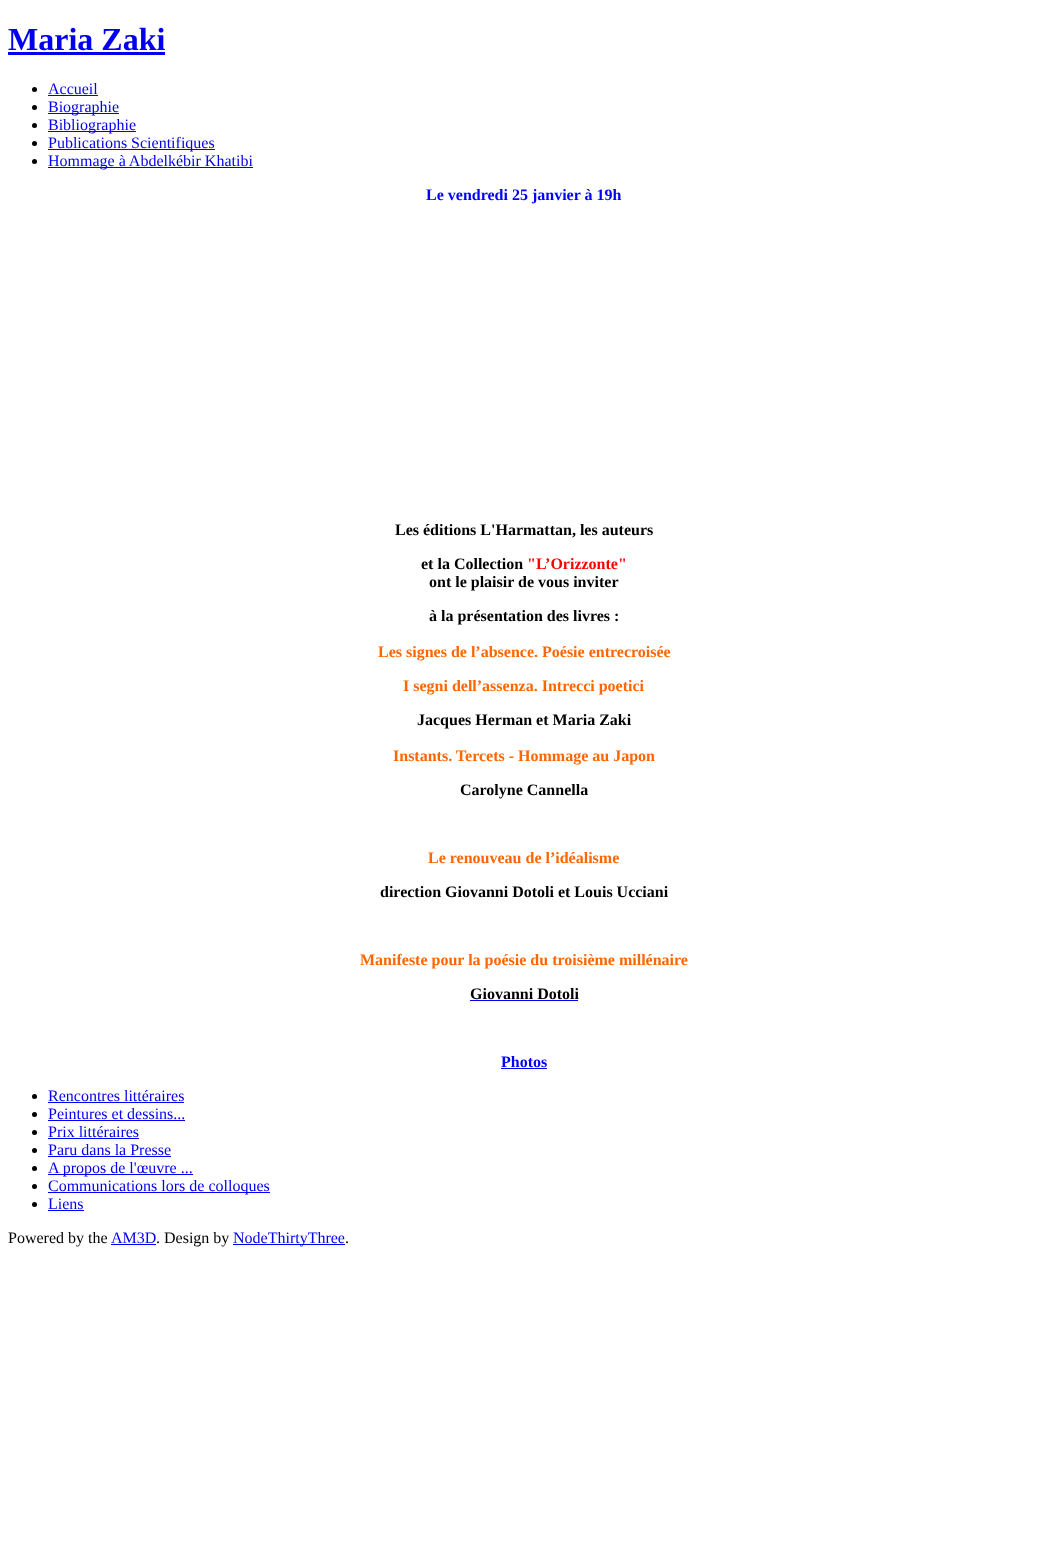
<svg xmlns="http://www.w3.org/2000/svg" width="1048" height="1549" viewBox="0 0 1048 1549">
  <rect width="100%" height="100%" fill="#ffffff"/>
  <text x="8" y="50" font-family="Liberation Serif" font-size="32" font-weight="bold" fill="#0000ee">Maria Zaki</text>
  <rect x="8" y="52" width="157" height="3" fill="#0000ee"/>
  <circle cx="34.5" cy="89.5" r="2.5" fill="#000000"/>
  <text x="48" y="94" font-family="Liberation Serif" font-size="16" fill="#0000ee">Accueil</text>
  <rect x="48" y="95" width="50" height="1" fill="#0000ee"/>
  <circle cx="34.5" cy="107.5" r="2.5" fill="#000000"/>
  <rect x="48" y="113" width="71" height="1" fill="#0000ee"/>
  <text x="48" y="112" font-family="Liberation Serif" font-size="16" fill="#0000ee">Biographie</text>
  <circle cx="34.5" cy="125.5" r="2.5" fill="#000000"/>
  <rect x="48" y="131" width="88" height="1" fill="#0000ee"/>
  <text x="48" y="130" font-family="Liberation Serif" font-size="16" fill="#0000ee">Bibliographie</text>
  <circle cx="34.5" cy="143.5" r="2.5" fill="#000000"/>
  <rect x="48" y="149" width="167" height="1" fill="#0000ee"/>
  <text x="48" y="148" font-family="Liberation Serif" font-size="16" fill="#0000ee">Publications Scientifiques</text>
  <circle cx="34.5" cy="161.5" r="2.5" fill="#000000"/>
  <rect x="48" y="167" width="205" height="1" fill="#0000ee"/>
  <text x="48" y="166" font-family="Liberation Serif" font-size="16" fill="#0000ee">Hommage à Abdelkébir Khatibi</text>
  <text x="426" y="200" font-family="Liberation Serif" font-size="16" font-weight="bold" fill="#0000ff">Le vendredi 25 janvier à 19h</text>
  <text x="395" y="535" font-family="Liberation Serif" font-size="16" font-weight="bold" fill="#000000">Les éditions L'Harmattan, les auteurs</text>
  <text x="421" y="569" font-family="Liberation Serif" font-size="16" font-weight="bold" fill="#000000">et la Collection</text>
  <text x="527" y="569" font-family="Liberation Serif" font-size="16" font-weight="bold" fill="#ff0000">"L’Orizzonte"</text>
  <text x="429" y="587" font-family="Liberation Serif" font-size="16" font-weight="bold" fill="#000000">ont le plaisir de vous inviter</text>
  <text x="429" y="621" font-family="Liberation Serif" font-size="16" font-weight="bold" fill="#000000">à la présentation des livres :</text>
  <text x="378" y="657" font-family="Liberation Serif" font-size="16" font-weight="bold" fill="#ff6600">Les signes de l’absence. Poésie entrecroisée</text>
  <text x="403" y="691" font-family="Liberation Serif" font-size="16" font-weight="bold" fill="#ff6600">I segni dell’assenza. Intrecci poetici</text>
  <text x="417" y="725" font-family="Liberation Serif" font-size="16" font-weight="bold" fill="#000000">Jacques Herman et Maria Zaki</text>
  <text x="393" y="761" font-family="Liberation Serif" font-size="16" font-weight="bold" fill="#ff6600">Instants. Tercets - Hommage au Japon</text>
  <text x="460" y="795" font-family="Liberation Serif" font-size="16" font-weight="bold" fill="#000000">Carolyne Cannella</text>
  <text x="428" y="863" font-family="Liberation Serif" font-size="16" font-weight="bold" fill="#ff6600">Le renouveau de l’idéalisme</text>
  <text x="380" y="897" font-family="Liberation Serif" font-size="16" font-weight="bold" fill="#000000">direction Giovanni Dotoli et Louis Ucciani</text>
  <text x="360" y="965" font-family="Liberation Serif" font-size="16" font-weight="bold" fill="#ff6600">Manifeste pour la poésie du troisième millénaire</text>
  <text x="470" y="999" font-family="Liberation Serif" font-size="16" font-weight="bold" fill="#000000">Giovanni Dotoli</text>
  <rect x="470" y="1000" width="108" height="1" fill="#0000ee"/>
  <text x="501" y="1067" font-family="Liberation Serif" font-size="16" font-weight="bold" fill="#0000ff">Photos</text>
  <rect x="501" y="1068" width="46" height="1" fill="#0000ee"/>
  <circle cx="34.5" cy="1096.5" r="2.5" fill="#000000"/>
  <text x="48" y="1101" font-family="Liberation Serif" font-size="16" fill="#0000ee">Rencontres littéraires</text>
  <rect x="48" y="1102" width="136" height="1" fill="#0000ee"/>
  <circle cx="34.5" cy="1114.5" r="2.5" fill="#000000"/>
  <text x="48" y="1119" font-family="Liberation Serif" font-size="16" fill="#0000ee">Peintures et dessins...</text>
  <rect x="48" y="1120" width="137" height="1" fill="#0000ee"/>
  <circle cx="34.5" cy="1132.5" r="2.5" fill="#000000"/>
  <text x="48" y="1137" font-family="Liberation Serif" font-size="16" fill="#0000ee">Prix littéraires</text>
  <rect x="48" y="1138" width="91" height="1" fill="#0000ee"/>
  <circle cx="34.5" cy="1150.5" r="2.5" fill="#000000"/>
  <text x="48" y="1155" font-family="Liberation Serif" font-size="16" fill="#0000ee">Paru dans la Presse</text>
  <rect x="48" y="1156" width="123" height="1" fill="#0000ee"/>
  <circle cx="34.5" cy="1168.5" r="2.5" fill="#000000"/>
  <rect x="48" y="1174" width="145" height="1" fill="#0000ee"/>
  <text x="48" y="1173" font-family="Liberation Serif" font-size="16" fill="#0000ee">A propos de l'œuvre ...</text>
  <circle cx="34.5" cy="1186.5" r="2.5" fill="#000000"/>
  <rect x="48" y="1192" width="222" height="1" fill="#0000ee"/>
  <text x="48" y="1191" font-family="Liberation Serif" font-size="16" fill="#0000ee">Communications lors de colloques</text>
  <circle cx="34.5" cy="1204.5" r="2.5" fill="#000000"/>
  <text x="48" y="1209" font-family="Liberation Serif" font-size="16" fill="#0000ee">Liens</text>
  <rect x="48" y="1210" width="36" height="1" fill="#0000ee"/>
  <text x="8" y="1243" font-family="Liberation Serif" font-size="16" fill="#000000">Powered by the</text>
  <text x="111" y="1243" font-family="Liberation Serif" font-size="16" fill="#0000ee">AM3D</text>
  <rect x="111" y="1244" width="45" height="1" fill="#0000ee"/>
  <text x="156" y="1243" font-family="Liberation Serif" font-size="16" fill="#000000">. Design by</text>
  <rect x="233" y="1244" width="112" height="1" fill="#0000ee"/>
  <text x="233" y="1243" font-family="Liberation Serif" font-size="16" fill="#0000ee">NodeThirtyThree</text>
  <text x="345" y="1243" font-family="Liberation Serif" font-size="16" fill="#000000">.</text>
</svg>
